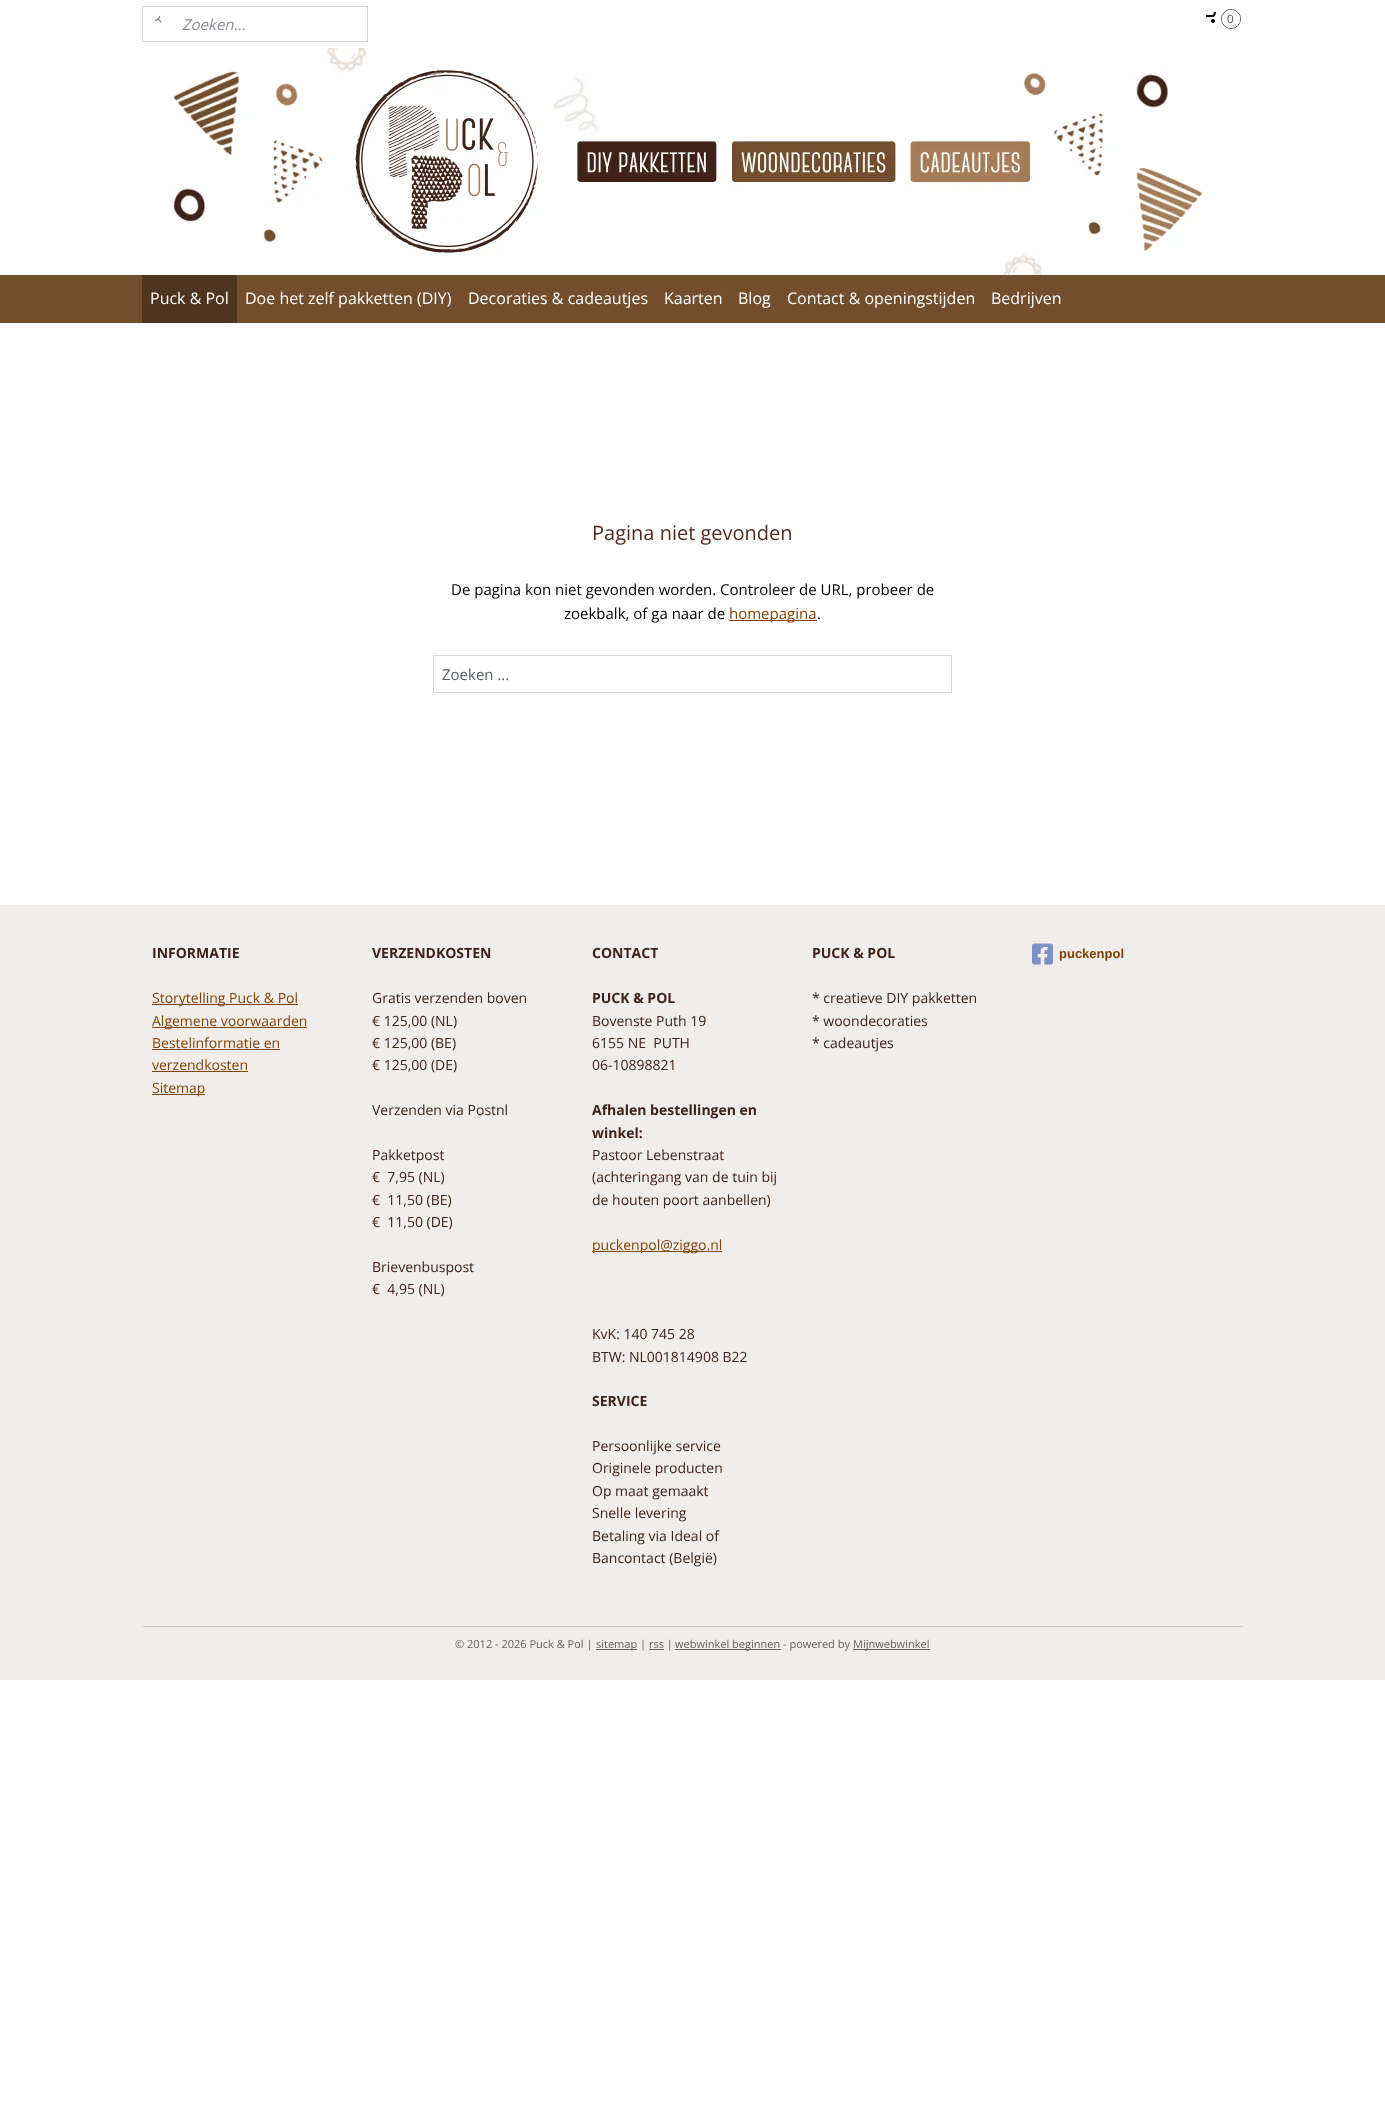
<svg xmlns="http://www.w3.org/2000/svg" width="1385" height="2109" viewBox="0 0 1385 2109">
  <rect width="100%" height="100%" fill="#ffffff"/>
  <rect x="142.5" y="6.5" width="225" height="35" fill="none" stroke="#d3d5d9"/>
  <image x="155" y="16" width="7" height="7" href="img1.png"/>
  <text x="182" y="30" font-family="Open Sans" font-size="15" font-style="italic" fill="#898c91">Zoeken...</text>
  <image x="1206" y="12" width="10" height="11" href="img2.png"/>
  <circle cx="1231" cy="19" r="9.5" fill="none" stroke="#575b62"/>
  <circle cx="1231" cy="19" r="9" fill="#ffffff"/>
  <text x="1227" y="23" font-family="Liberation Sans" font-size="12" fill="#575b62">0</text>
  <image x="168" y="48" width="1036" height="227" href="img3.png"/>
  <rect x="0" y="275" width="1385" height="48" fill="#734e2d"/>
  <rect x="142" y="275" width="95" height="48" fill="#4e351f"/>
  <text x="150" y="304" font-family="Open Sans" font-size="16" fill="#ffffff">Puck &amp; Pol</text>
  <text x="245" y="304" font-family="Open Sans" font-size="16" fill="#ffffff">Doe het zelf pakketten (DIY)</text>
  <text x="468" y="304" font-family="Open Sans" font-size="16" fill="#ffffff">Decoraties &amp; cadeautjes</text>
  <text x="664" y="304" font-family="Open Sans" font-size="16" fill="#ffffff">Kaarten</text>
  <text x="738" y="304" font-family="Open Sans" font-size="16" fill="#ffffff">Blog</text>
  <text x="787" y="304" font-family="Open Sans" font-size="16" fill="#ffffff">Contact &amp; openingstijden</text>
  <text x="991" y="304" font-family="Open Sans" font-size="16" fill="#ffffff">Bedrijven</text>
  <text x="592" y="540" font-family="Open Sans" font-size="20" fill="#522d1f">Pagina niet gevonden</text>
  <text x="451" y="595" font-family="Open Sans" font-size="15" fill="#000000">De pagina kon niet gevonden worden. Controleer de URL, probeer de</text>
  <text x="564" y="619" font-family="Open Sans" font-size="15" fill="#000000">zoekbalk, of ga naar de</text>
  <rect x="729" y="620" width="88" height="1" fill="#824303"/>
  <text x="729" y="619" font-family="Open Sans" font-size="15" fill="#814205">homepagina</text>
  <text x="817" y="619" font-family="Open Sans" font-size="15" fill="#000000">.</text>
  <rect x="433.5" y="655.5" width="518" height="37" fill="none" stroke="#d3d5d9"/>
  <text x="442" y="680" font-family="Open Sans" font-size="15" fill="#575b62">Zoeken ...</text>
  <rect x="0" y="905" width="1385" height="775" fill="#f1edea"/>
  <text x="152" y="958" font-family="Open Sans" font-size="14" font-weight="bold" fill="#402318">INFORMATIE</text>
  <rect x="152" y="1004" width="146" height="1" fill="#814205"/>
  <text x="152" y="1003" font-family="Open Sans" font-size="14" fill="#814205">Storytelling Puck &amp; Pol</text>
  <rect x="152" y="1027" width="155" height="1" fill="#814205"/>
  <text x="152" y="1026" font-family="Open Sans" font-size="14" fill="#814205">Algemene voorwaarden</text>
  <text x="152" y="1048" font-family="Open Sans" font-size="14" fill="#814205">Bestelinformatie en</text>
  <rect x="152" y="1049" width="128" height="1" fill="#814205"/>
  <text x="152" y="1070" font-family="Open Sans" font-size="14" fill="#814205">verzendkosten</text>
  <rect x="152" y="1071" width="96" height="1" fill="#814205"/>
  <rect x="152" y="1094" width="53" height="1" fill="#814205"/>
  <text x="152" y="1093" font-family="Open Sans" font-size="14" fill="#814205">Sitemap</text>
  <text x="372" y="958" font-family="Open Sans" font-size="14" font-weight="bold" fill="#402318">VERZENDKOSTEN</text>
  <text x="372" y="1003" font-family="Open Sans" font-size="14" fill="#402318">Gratis verzenden boven</text>
  <text x="372" y="1026" font-family="Open Sans" font-size="14" fill="#402318">€ 125,00 (NL)</text>
  <text x="372" y="1048" font-family="Open Sans" font-size="14" fill="#402318">€ 125,00 (BE)</text>
  <text x="372" y="1070" font-family="Open Sans" font-size="14" fill="#402318">€ 125,00 (DE)</text>
  <text x="372" y="1115" font-family="Open Sans" font-size="14" fill="#402318">Verzenden via Postnl</text>
  <text x="372" y="1160" font-family="Open Sans" font-size="14" fill="#402318">Pakketpost</text>
  <text x="372" y="1182" font-family="Open Sans" font-size="14" fill="#402318" xml:space="preserve">€  7,95 (NL)</text>
  <text x="372" y="1205" font-family="Open Sans" font-size="14" fill="#402318" xml:space="preserve">€  11,50 (BE)</text>
  <text x="372" y="1227" font-family="Open Sans" font-size="14" fill="#402318" xml:space="preserve">€  11,50 (DE)</text>
  <text x="372" y="1272" font-family="Open Sans" font-size="14" fill="#402318">Brievenbuspost</text>
  <text x="372" y="1294" font-family="Open Sans" font-size="14" fill="#402318" xml:space="preserve">€  4,95 (NL)</text>
  <text x="592" y="958" font-family="Open Sans" font-size="14" font-weight="bold" fill="#402318">CONTACT</text>
  <text x="592" y="1003" font-family="Open Sans" font-size="14" font-weight="bold" fill="#402318">PUCK &amp; POL</text>
  <text x="592" y="1026" font-family="Open Sans" font-size="14" fill="#402318">Bovenste Puth 19</text>
  <text x="592" y="1048" font-family="Open Sans" font-size="14" fill="#402318" xml:space="preserve">6155 NE  PUTH</text>
  <text x="592" y="1070" font-family="Open Sans" font-size="14" fill="#402318">06-10898821</text>
  <text x="592" y="1115" font-family="Open Sans" font-size="14" font-weight="bold" fill="#402318">Afhalen bestellingen en</text>
  <text x="592" y="1138" font-family="Open Sans" font-size="14" font-weight="bold" fill="#402318">winkel:</text>
  <text x="592" y="1160" font-family="Open Sans" font-size="14" fill="#402318">Pastoor Lebenstraat</text>
  <text x="592" y="1182" font-family="Open Sans" font-size="14" fill="#402318">(achteringang van de tuin bij</text>
  <text x="592" y="1205" font-family="Open Sans" font-size="14" fill="#402318">de houten poort aanbellen)</text>
  <rect x="592" y="1251" width="130" height="1" fill="#814205"/>
  <text x="592" y="1250" font-family="Open Sans" font-size="14" fill="#814205">puckenpol@ziggo.nl</text>
  <text x="592" y="1339" font-family="Open Sans" font-size="14" fill="#402318">KvK: 140 745 28</text>
  <text x="592" y="1362" font-family="Open Sans" font-size="14" fill="#402318">BTW: NL001814908 B22</text>
  <text x="592" y="1406" font-family="Open Sans" font-size="14" font-weight="bold" fill="#402318">SERVICE</text>
  <text x="592" y="1451" font-family="Open Sans" font-size="14" fill="#402318">Persoonlijke service</text>
  <text x="592" y="1473" font-family="Open Sans" font-size="14" fill="#402318">Originele producten</text>
  <text x="592" y="1496" font-family="Open Sans" font-size="14" fill="#402318">Op maat gemaakt</text>
  <text x="592" y="1518" font-family="Open Sans" font-size="14" fill="#402318">Snelle levering</text>
  <text x="592" y="1541" font-family="Open Sans" font-size="14" fill="#402318">Betaling via Ideal of</text>
  <text x="592" y="1563" font-family="Open Sans" font-size="14" fill="#402318">Bancontact (België)</text>
  <text x="812" y="958" font-family="Open Sans" font-size="14" font-weight="bold" fill="#402318">PUCK &amp; POL</text>
  <text x="812" y="1003" font-family="Open Sans" font-size="14" fill="#402318">* creatieve DIY pakketten</text>
  <text x="812" y="1026" font-family="Open Sans" font-size="14" fill="#402318">* woondecoraties</text>
  <text x="812" y="1048" font-family="Open Sans" font-size="14" fill="#402318">* cadeautjes</text>
  <image x="1032" y="943" width="21" height="22" href="img4.png"/>
  <text x="1059" y="958" font-family="Liberation Sans" font-size="13" font-weight="bold" fill="#814205">puckenpol</text>
  <rect x="143" y="1626" width="1100" height="1" fill="#cdc9c7"/>
  <text x="455" y="1648" font-family="Open Sans" font-size="11" fill="#605f5e">© 2012 - 2026 Puck &amp; Pol |</text>
  <rect x="596" y="1649" width="41" height="1" fill="#605f5e"/>
  <text x="596" y="1648" font-family="Open Sans" font-size="11" fill="#605f5e">sitemap</text>
  <text x="640" y="1648" font-family="Open Sans" font-size="11" fill="#605f5e">| rss |</text>
  <rect x="675" y="1649" width="106" height="1" fill="#605f5e"/>
  <text x="675" y="1648" font-family="Open Sans" font-size="11" fill="#605f5e">webwinkel beginnen</text>
  <text x="783" y="1648" font-family="Open Sans" font-size="11" fill="#605f5e">- powered by</text>
  <rect x="853" y="1649" width="77" height="1" fill="#605f5e"/>
  <text x="853" y="1648" font-family="Open Sans" font-size="11" fill="#605f5e">Mijnwebwinkel</text>
  <rect x="649" y="1649" width="15" height="1" fill="#605f5e"/>
</svg>
